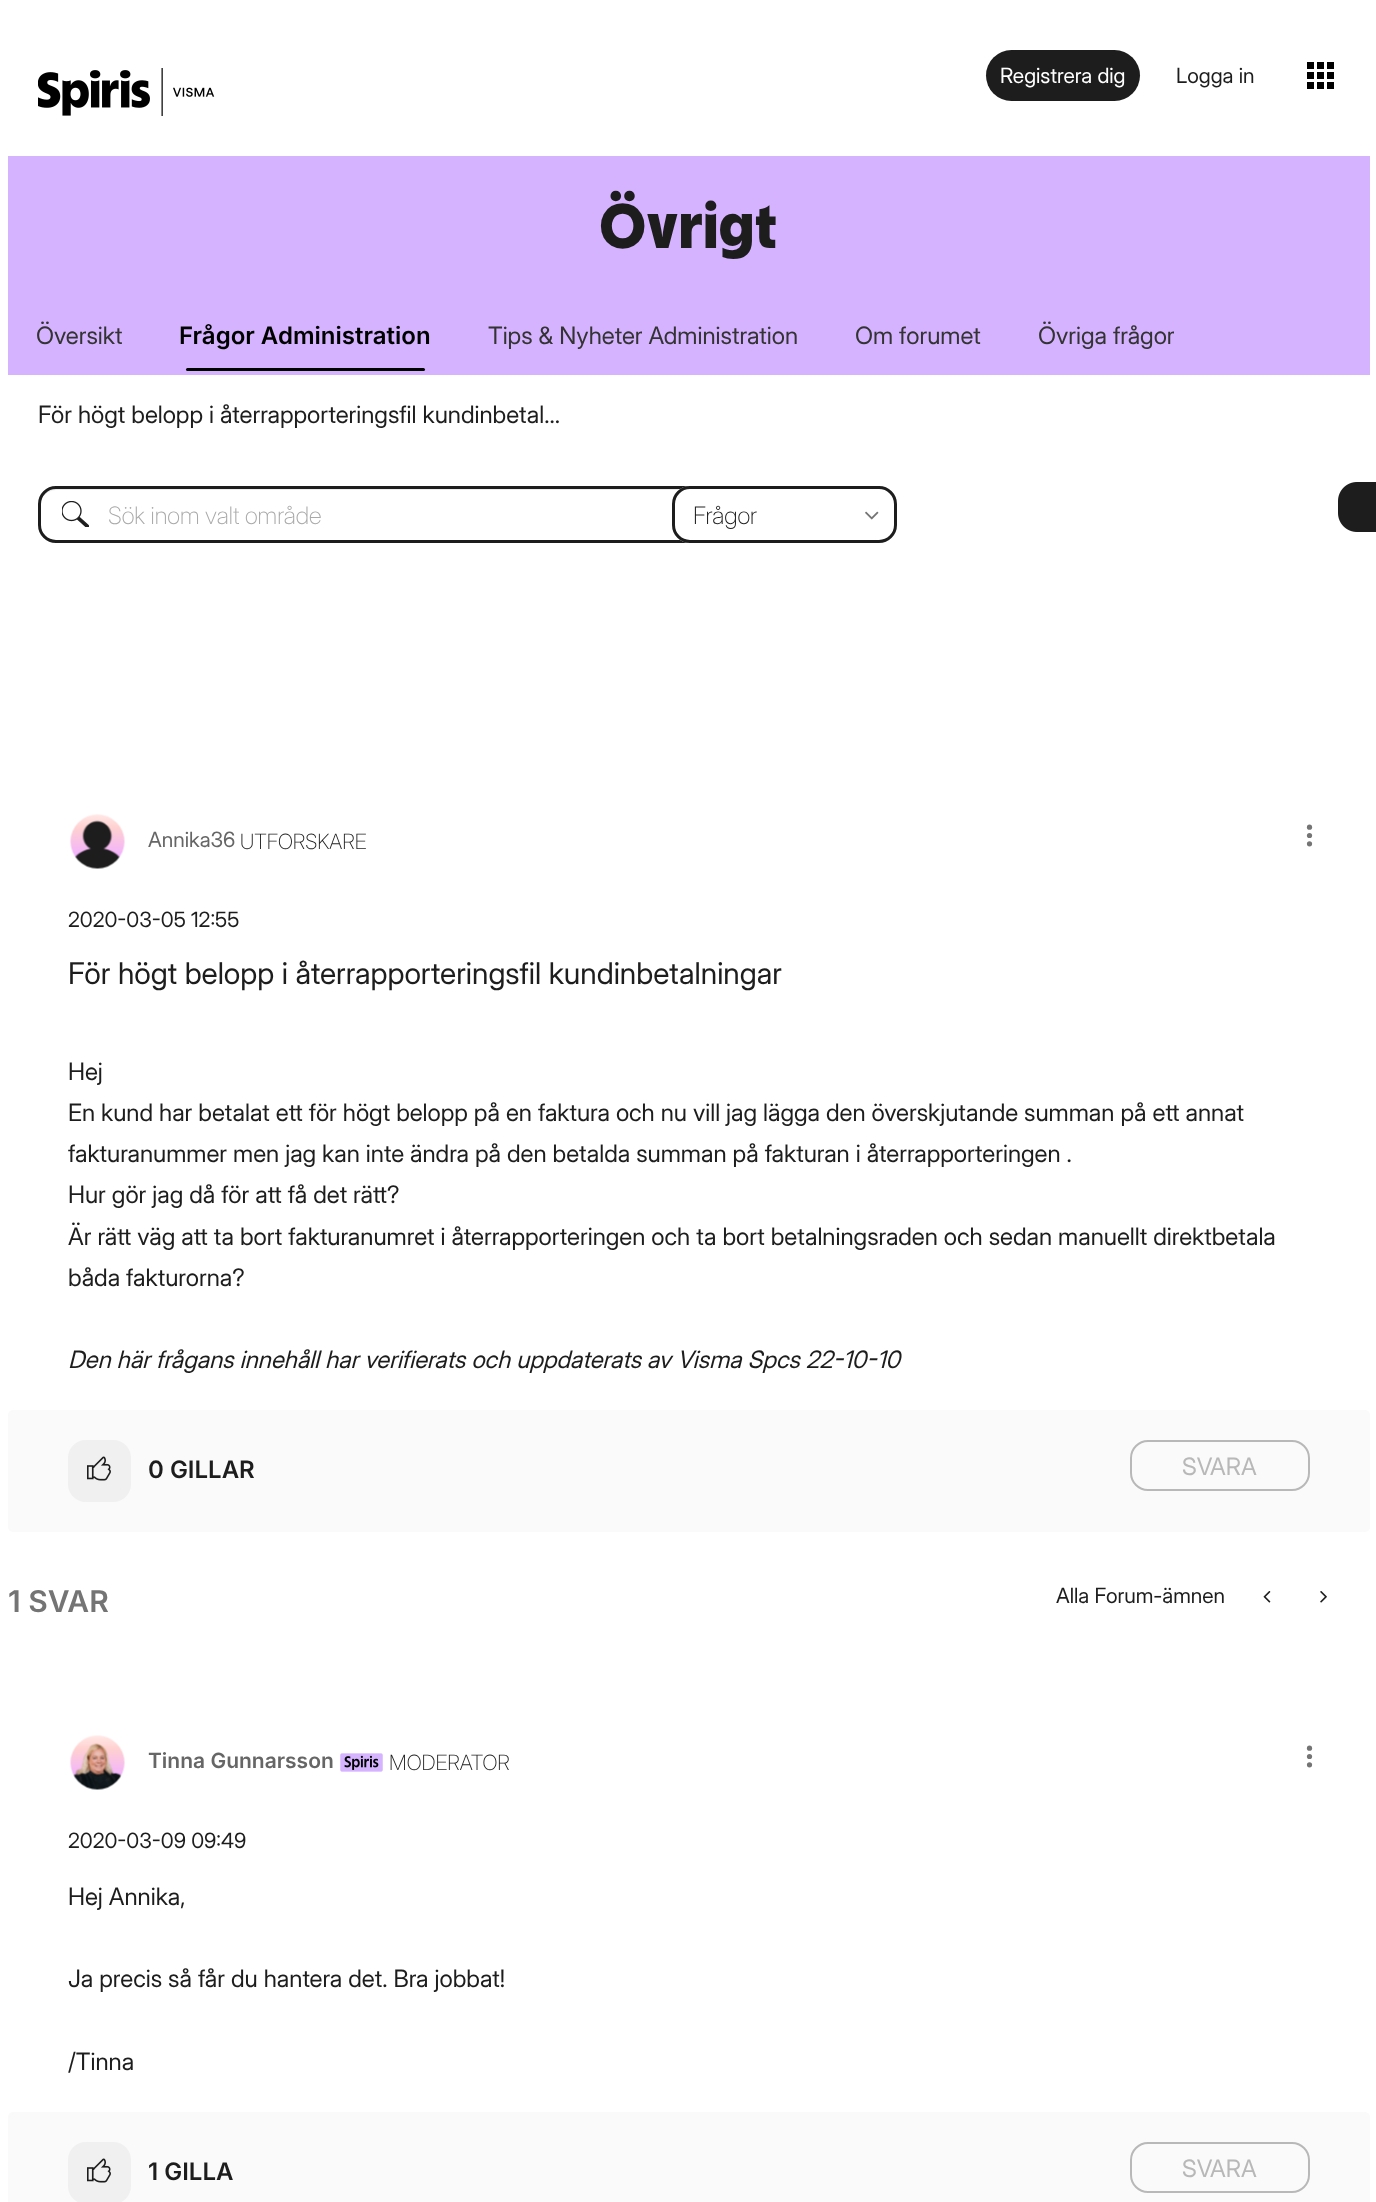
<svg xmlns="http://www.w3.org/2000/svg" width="1376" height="2202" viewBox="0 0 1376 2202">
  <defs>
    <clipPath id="clip1"><rect x="68" y="1052" width="1242" height="343"/></clipPath>
  </defs>
  <rect width="100%" height="100%" fill="#ffffff"/>
  <image x="38" y="68" width="177" height="48" href="img1.png"/>
  <rect x="986" y="50" width="154" height="51" rx="25.5" fill="#1d1d1e"/>
  <text x="1000" y="83" font-family="Inter Display" font-size="21" fill="#ffffff">Registrera dig</text>
  <text x="1176" y="83" font-family="Inter Display" font-size="21" fill="#1d1d1e">Logga in</text>
  <image x="1307" y="62" width="27" height="27" href="img2.png"/>
  <rect x="8" y="156" width="1362" height="219" fill="#d5b3ff"/>
  <text x="599" y="248" font-family="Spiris" font-size="63" font-weight="bold" fill="#1d1d1e">Övrigt</text>
  <text x="36" y="344" font-family="Inter Display" font-size="24" fill="#333333">Översikt</text>
  <text x="179" y="344" font-family="Inter" font-size="24" font-weight="600" fill="#000000">Frågor Administration</text>
  <rect x="186" y="368" width="239" height="3" rx="1.5" fill="#000000"/>
  <text x="488" y="344" font-family="Inter Display" font-size="24" fill="#333333">Tips &amp; Nyheter Administration</text>
  <text x="855" y="344" font-family="Inter Display" font-size="24" fill="#333333">Om forumet</text>
  <text x="1038" y="344" font-family="Inter Display" font-size="24" fill="#333333">Övriga frågor</text>
  <text x="38" y="423" font-family="Inter Display" font-size="24" fill="#1d1d1e">För högt belopp i återrapporteringsfil kundinbetal...</text>
  <path d="M56 490H834C842 490 849 497 849 506V504C849 496 842 489 834 489H56C50 489 46 492 43 497C46 493 51 490 56 490Z" fill="#ececec"/>
  <rect x="39.5" y="487.5" width="811" height="54" rx="16.5" fill="none" stroke="#1d1d1e" stroke-width="3"/>
  <image x="62" y="501" width="27" height="26" href="img3.png"/>
  <text x="108" y="524" font-family="Inter Display" font-size="24" font-weight="200" fill="#a9a9a9">Sök inom valt område</text>
  <rect x="672" y="486" width="225" height="57" rx="18" fill="#ffffff"/>
  <image x="865" y="511" width="14" height="9" href="img4.png"/>
  <rect x="673.5" y="487.5" width="222" height="54" rx="16.5" fill="none" stroke="#1d1d1e" stroke-width="3"/>
  <text x="693" y="524" font-family="Inter Display" font-size="24" font-weight="200" fill="#1d1d1e">Frågor</text>
  <image x="1338" y="482" width="38" height="50" href="img5.png"/>
  <image x="70" y="814" width="55" height="55" href="img6.png"/>
  <text x="148" y="847" font-family="Inter Display" font-size="21" fill="#666666">Annika36</text>
  <text x="240" y="849" font-family="Inter Display" font-size="21" font-weight="200" fill="#1d1d1e">UTFORSKARE</text>
  <circle cx="1309.5" cy="827.2" r="2.6" fill="#747474"/>
  <circle cx="1309.5" cy="835.5" r="2.6" fill="#747474"/>
  <circle cx="1309.5" cy="843.8" r="2.6" fill="#747474"/>
  <text x="68" y="927" font-family="Inter Display" font-size="21" fill="#1d1d1e">2020-03-05 12:55</text>
  <text x="68" y="984" font-family="Inter Display" font-size="30" fill="#1d1d1e">För högt belopp i återrapporteringsfil kundinbetalningar</text>
  <text x="68" y="1080" font-family="Inter Display" font-size="24" fill="#1d1d1e">Hej</text>
  <text x="68" y="1121" font-family="Inter Display" font-size="24" fill="#1d1d1e">En kund har betalat ett för högt belopp på en faktura och nu vill jag lägga den överskjutande summan på ett annat</text>
  <g clip-path="url(#clip1)">
    <text x="68" y="1162" font-family="Inter Display" font-size="24" fill="#1d1d1e">fakturanummer men jag kan inte ändra på den betalda summan på fakturan i återrapporteringen .</text>
  </g>
  <text x="68" y="1203" font-family="Inter Display" font-size="24" fill="#1d1d1e">Hur gör jag då för att få det rätt?</text>
  <text x="68" y="1245" font-family="Inter Display" font-size="24" fill="#1d1d1e">Är rätt väg att ta bort fakturanumret i återrapporteringen och ta bort betalningsraden och sedan manuellt direktbetala</text>
  <text x="68" y="1286" font-family="Inter Display" font-size="24" fill="#1d1d1e">båda fakturorna?</text>
  <text x="68" y="1368" font-family="Inter Display" font-size="24" font-style="italic" fill="#1d1d1e">Den här frågans innehåll har verifierats och uppdaterats av Visma Spcs 22-10-10</text>
  <rect x="8" y="1410" width="1362" height="122" rx="5" fill="#fafafa"/>
  <rect x="68" y="1440" width="63" height="62" rx="18" fill="#f0f0f0"/>
  <image x="87" y="1456" width="24" height="25" href="img7.png"/>
  <text x="148" y="1478" font-family="Inter" font-size="24" font-weight="600" fill="#1d1d1e">0 GILLAR</text>
  <rect x="1131" y="1441" width="178" height="49" rx="17" fill="none" stroke="#b8b8b8" stroke-width="2"/>
  <text x="1182" y="1475" font-family="Inter Display" font-size="24" fill="#b8b8b8">SVARA</text>
  <text x="8" y="1612" font-family="Inter" font-size="30" font-weight="600" fill="#747474">1 SVAR</text>
  <text x="1056" y="1603" font-family="Inter Display" font-size="21" fill="#1d1d1e">Alla Forum-ämnen</text>
  <image x="1263" y="1591" width="8" height="12" href="img8.png"/>
  <image x="1320" y="1591" width="7" height="12" href="img9.png"/>
  <image x="70" y="1735" width="55" height="55" href="img10.png"/>
  <text x="148" y="1768" font-family="Inter" font-size="21" font-weight="600" fill="#666666">Tinna Gunnarsson</text>
  <image x="340" y="1753" width="43" height="19" href="img11.png"/>
  <text x="389" y="1770" font-family="Inter Display" font-size="21" font-weight="200" fill="#1d1d1e">MODERATOR</text>
  <circle cx="1309.5" cy="1748.2" r="2.6" fill="#747474"/>
  <circle cx="1309.5" cy="1756.5" r="2.6" fill="#747474"/>
  <circle cx="1309.5" cy="1764.8" r="2.6" fill="#747474"/>
  <text x="68" y="1848" font-family="Inter Display" font-size="21" fill="#1d1d1e">2020-03-09 09:49</text>
  <text x="68" y="1905" font-family="Inter Display" font-size="24" fill="#1d1d1e">Hej Annika,</text>
  <text x="68" y="1987" font-family="Inter Display" font-size="24" fill="#1d1d1e">Ja precis så får du hantera det. Bra jobbat!</text>
  <text x="68" y="2070" font-family="Inter Display" font-size="24" fill="#1d1d1e">/Tinna</text>
  <rect x="8" y="2112" width="1362" height="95" rx="5" fill="#fafafa"/>
  <rect x="68" y="2142" width="63" height="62" rx="18" fill="#f0f0f0"/>
  <image x="87" y="2158" width="24" height="25" href="img7.png"/>
  <text x="148" y="2180" font-family="Inter" font-size="24" font-weight="600" fill="#1d1d1e">1 GILLA</text>
  <rect x="1131" y="2143" width="178" height="49" rx="17" fill="none" stroke="#b8b8b8" stroke-width="2"/>
  <text x="1182" y="2177" font-family="Inter Display" font-size="24" fill="#b8b8b8">SVARA</text>
</svg>
